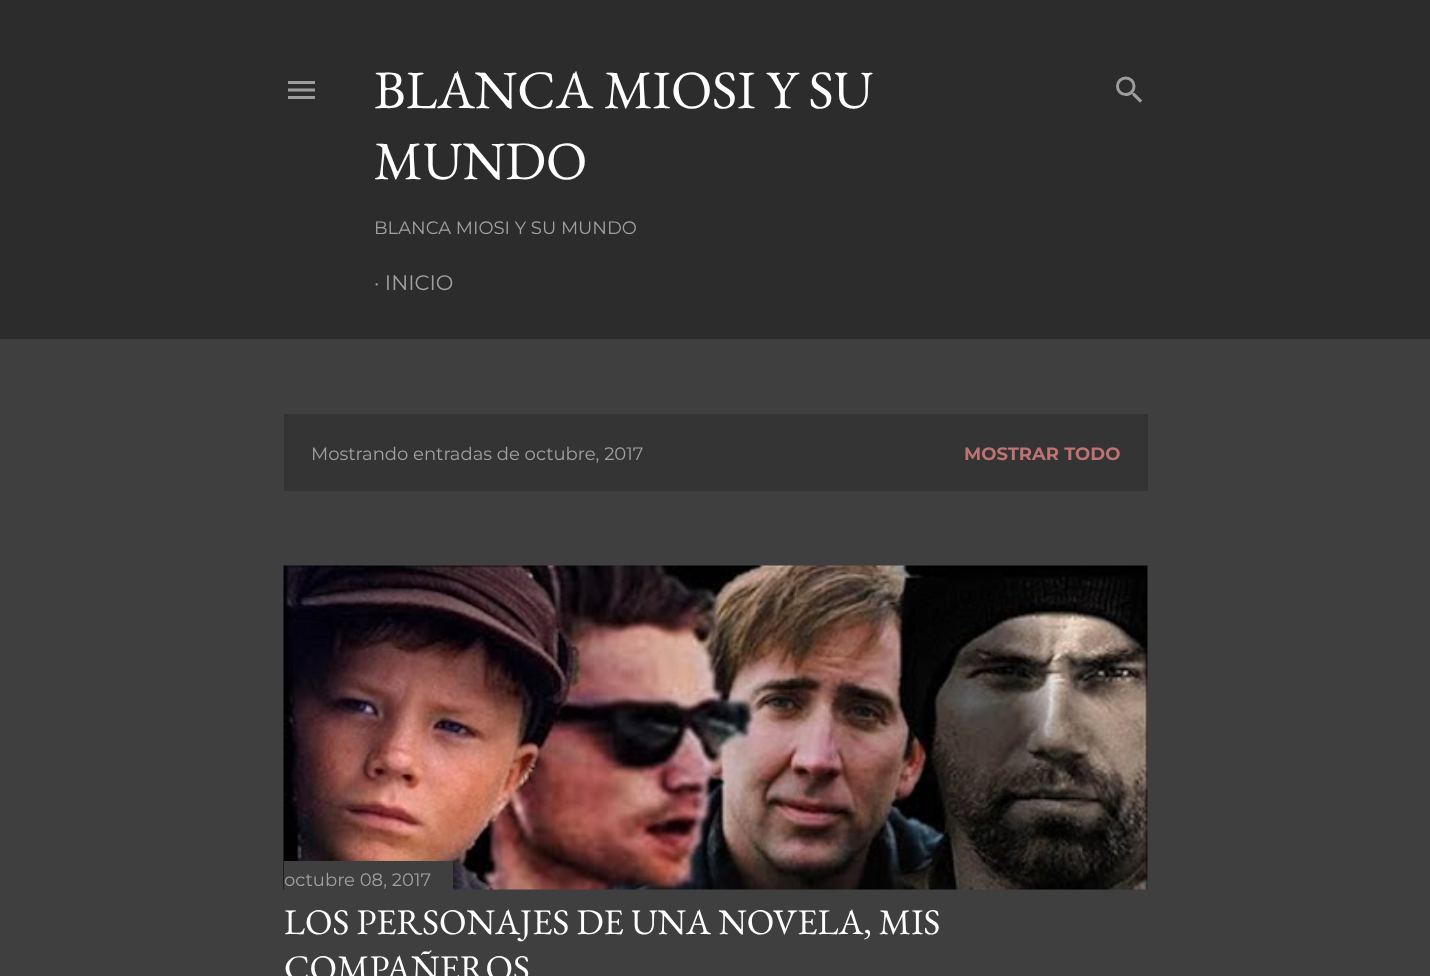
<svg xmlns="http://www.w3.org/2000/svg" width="1430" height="976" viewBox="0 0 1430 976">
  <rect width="100%" height="100%" fill="#3f3f3f"/>
  <rect x="0" y="0" width="1430" height="339" fill="#2c2c2c"/>
  <image x="288" y="81" width="27" height="18" href="img1.png"/>
  <text x="374" y="108" font-family="EB Garamond" font-size="54" fill="#ffffff">BLANCA MIOSI Y SU</text>
  <text x="374" y="179" font-family="EB Garamond" font-size="54" fill="#ffffff">MUNDO</text>
  <text x="374" y="234" font-family="Montserrat" font-size="18" fill="#a1a1a1">BLANCA MIOSI Y SU MUNDO</text>
  <text x="374" y="290" font-family="Montserrat" font-size="21" fill="#a1a1a1">· INICIO</text>
  <image x="1116" y="76" width="27" height="27" href="img2.png"/>
  <rect x="284" y="414" width="864" height="77" fill="#343434"/>
  <text x="311" y="460" font-family="Montserrat" font-size="18" fill="#a1a1a1">Mostrando entradas de octubre, 2017</text>
  <text x="964" y="460" font-family="Montserrat" font-size="18" font-weight="bold" fill="#bd7373">MOSTRAR TODO</text>
  <image x="283" y="565" width="865" height="325" href="img3.png"/>
  <rect x="284" y="861" width="169" height="29" fill="#3f3f3f"/>
  <text x="284" y="886" font-family="Montserrat" font-size="18" fill="#a1a1a1">octubre 08, 2017</text>
  <text x="284" y="934" font-family="EB Garamond" font-size="36" fill="#ffffff">LOS PERSONAJES DE UNA NOVELA, MIS</text>
  <text x="284" y="980" font-family="EB Garamond" font-size="36" fill="#ffffff">COMPAÑEROS</text>
</svg>
